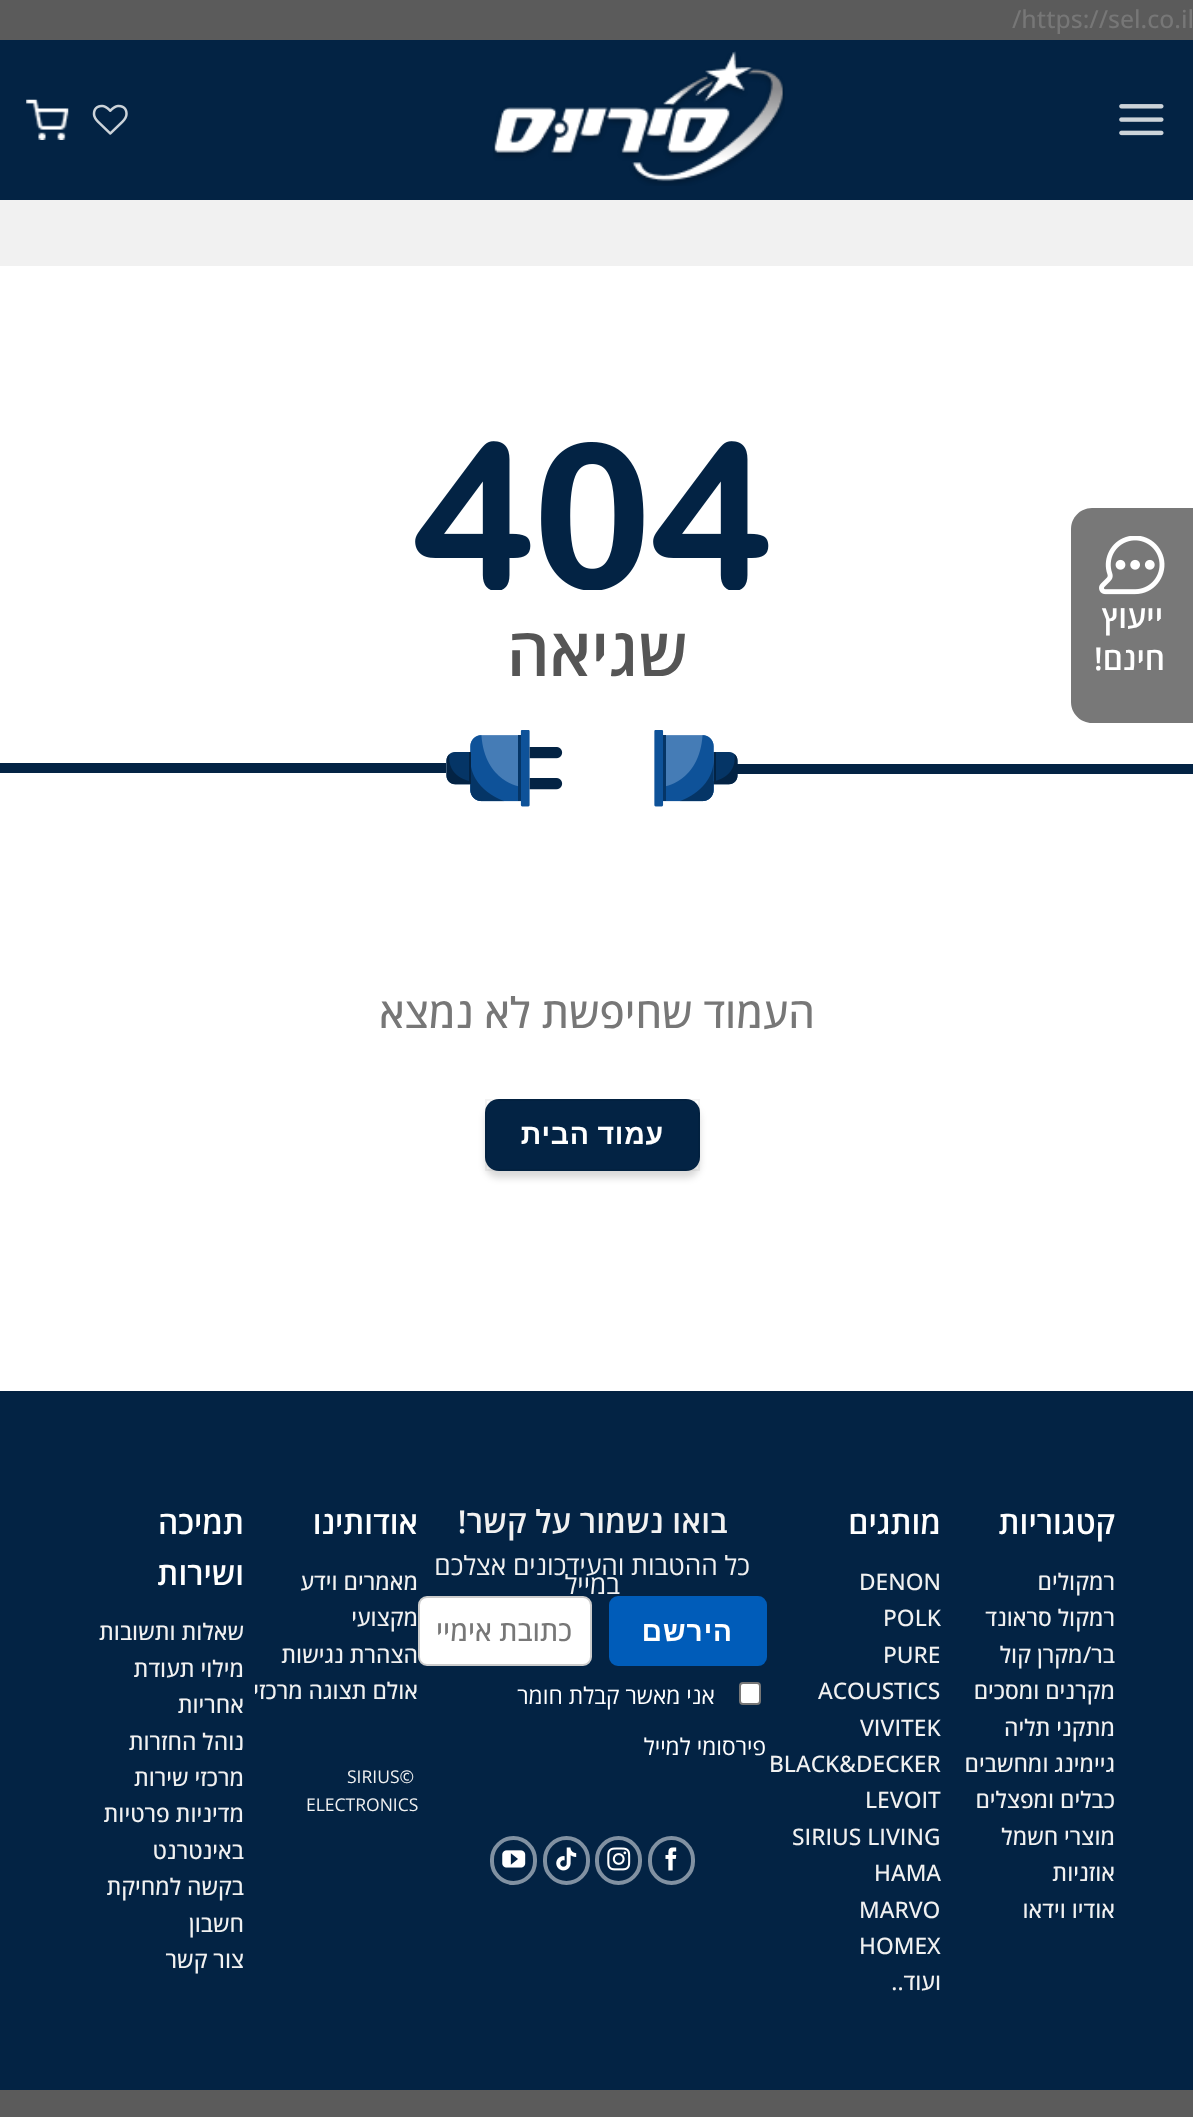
<svg xmlns="http://www.w3.org/2000/svg" width="1193" height="2117" viewBox="0 0 1193 2117">
  <defs>
    <clipPath id="clip1"><rect x="438" y="1612" width="134" height="38"/></clipPath>
    <filter id="blur1" x="-50%" y="-200%" width="200%" height="500%"><feGaussianBlur stdDeviation="3.5"/></filter>
  </defs>
  <rect width="100%" height="100%" fill="#5b5b5b"/>
  <text x="1012" y="28" font-family="Open Sans" font-size="24.75" font-weight="500" fill="#777777">/https://sel.co.il</text>
  <rect x="0" y="266" width="1193" height="1125" fill="#ffffff"/>
  <rect x="0" y="40" width="1193" height="160" fill="#032344"/>
  <image x="1119" y="104" width="45" height="32" href="img1.png"/>
  <image x="493" y="51" width="292" height="135" href="img2.png"/>
  <image x="92" y="104" width="36" height="31" href="img3.png"/>
  <image x="26" y="99" width="43" height="41" href="img4.png"/>
  <rect x="0" y="200" width="1193" height="66" fill="#f1f1f1"/>
  <rect x="0" y="1393" width="1193" height="697" fill="#032344"/>
  <rect x="0" y="1391" width="1193" height="2" fill="#032141"/>
  <path d="M1092 508H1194V723H1092C1080.5 723 1071 713.5 1071 702V529C1071 517.5 1080.5 508 1092 508Z" fill="#787878"/>
  <image x="1099" y="536" width="66" height="59" href="img5.png"/>
  <text x="1163" y="628" font-family="Open Sans" font-size="31.5" font-weight="600" direction="rtl" fill="#ffffff">ייעוץ</text>
  <text x="1165" y="670" font-family="Open Sans" font-size="31.5" font-weight="600" direction="rtl" fill="#ffffff">חינם!</text>
  <text x="1115" y="1534" font-family="Open Sans" font-size="31.5" font-weight="600" direction="rtl" fill="#ffffff">קטגוריות</text>
  <text x="1115" y="1590" font-family="Open Sans" font-size="22.75" font-weight="500" direction="rtl" fill="#f1f1f1">רמקולים</text>
  <text x="1115" y="1626" font-family="Open Sans" font-size="22.75" font-weight="500" direction="rtl" fill="#f1f1f1">רמקול סראונד</text>
  <text x="1115" y="1663" font-family="Open Sans" font-size="22.75" font-weight="500" direction="rtl" fill="#f1f1f1">בר/מקרן קול</text>
  <text x="1115" y="1699" font-family="Open Sans" font-size="22.75" font-weight="500" direction="rtl" fill="#f1f1f1">מקרנים ומסכים</text>
  <text x="1115" y="1736" font-family="Open Sans" font-size="22.75" font-weight="500" direction="rtl" fill="#f1f1f1">מתקני תליה</text>
  <text x="1115" y="1772" font-family="Open Sans" font-size="22.75" font-weight="500" direction="rtl" fill="#f1f1f1">גיימינג ומחשבים</text>
  <text x="1115" y="1808" font-family="Open Sans" font-size="22.75" font-weight="500" direction="rtl" fill="#f1f1f1">כבלים ומפצלים</text>
  <text x="1115" y="1845" font-family="Open Sans" font-size="22.75" font-weight="500" direction="rtl" fill="#f1f1f1">מוצרי חשמל</text>
  <text x="1115" y="1881" font-family="Open Sans" font-size="22.75" font-weight="500" direction="rtl" fill="#f1f1f1">אוזניות</text>
  <text x="1115" y="1918" font-family="Open Sans" font-size="22.75" font-weight="500" direction="rtl" fill="#f1f1f1">אודיו וידאו</text>
  <text x="941" y="1534" font-family="Open Sans" font-size="31.5" font-weight="600" direction="rtl" fill="#ffffff">מותגים</text>
  <text x="859" y="1590" font-family="Open Sans" font-size="22.75" font-weight="500" fill="#f1f1f1">DENON</text>
  <text x="883" y="1626" font-family="Open Sans" font-size="22.75" font-weight="500" fill="#f1f1f1">POLK</text>
  <text x="883" y="1663" font-family="Open Sans" font-size="22.75" font-weight="500" fill="#f1f1f1">PURE</text>
  <text x="818" y="1699" font-family="Open Sans" font-size="22.75" font-weight="500" fill="#f1f1f1">ACOUSTICS</text>
  <text x="860" y="1736" font-family="Open Sans" font-size="22.75" font-weight="500" fill="#f1f1f1">VIVITEK</text>
  <text x="769" y="1772" font-family="Open Sans" font-size="22.75" font-weight="500" fill="#f1f1f1">BLACK&amp;DECKER</text>
  <text x="865" y="1808" font-family="Open Sans" font-size="22.75" font-weight="500" fill="#f1f1f1">LEVOIT</text>
  <text x="792" y="1845" font-family="Open Sans" font-size="22.75" font-weight="500" fill="#f1f1f1">SIRIUS LIVING</text>
  <text x="874" y="1881" font-family="Open Sans" font-size="22.75" font-weight="500" fill="#f1f1f1">HAMA</text>
  <text x="859" y="1918" font-family="Open Sans" font-size="22.75" font-weight="500" fill="#f1f1f1">MARVO</text>
  <text x="859" y="1954" font-family="Open Sans" font-size="22.75" font-weight="500" fill="#f1f1f1">HOMEX</text>
  <text x="941" y="1990" font-family="Open Sans" font-size="22.75" font-weight="500" direction="rtl" fill="#f1f1f1">ועוד..</text>
  <text x="728" y="1533" font-family="Open Sans" font-size="31.5" font-weight="600" letter-spacing="0.3" direction="rtl" fill="#f1f1f1">בואו נשמור על קשר!</text>
  <text x="750" y="1575" font-family="Open Sans" font-size="26.25" direction="rtl" fill="#f1f1f1">כל ההטבות והעידכונים אצלכם</text>
  <text x="620" y="1594" font-family="Open Sans" font-size="26.25" direction="rtl" fill="#f1f1f1">במייל</text>
  <rect x="609" y="1596" width="158" height="70" rx="9" fill="#005cb9"/>
  <text x="733" y="1641" font-family="Liberation Sans" font-size="28" font-weight="bold" letter-spacing="1" direction="rtl" fill="#ffffff">הירשם</text>
  <rect x="419" y="1597" width="172" height="68" rx="8" fill="#ffffff" stroke="#cccccc" stroke-width="2"/>
  <g clip-path="url(#clip1)">
    <text x="572" y="1641" font-family="Open Sans" font-size="28" font-weight="500" direction="rtl" fill="#777777">כתובת אימייל</text>
  </g>
  <rect x="740" y="1683" width="20" height="21" rx="3" fill="#ffffff" stroke="#767676" stroke-width="2"/>
  <text x="715" y="1704" font-family="Open Sans" font-size="22.75" direction="rtl" fill="#ffffff">אני מאשר קבלת חומר</text>
  <text x="766" y="1755" font-family="Open Sans" font-size="22.75" direction="rtl" fill="#ffffff">פירסומי למייל</text>
  <rect x="650" y="1838" width="43" height="45" rx="21.5" fill="none" stroke="#ffffff" stroke-opacity="0.5" stroke-width="4"/>
  <image x="665" y="1847" width="12" height="24" href="img6.png"/>
  <rect x="597" y="1838" width="43" height="45" rx="21.5" fill="none" stroke="#ffffff" stroke-opacity="0.5" stroke-width="4"/>
  <image x="607" y="1847" width="24" height="24" href="img7.png"/>
  <rect x="545" y="1838" width="43" height="45" rx="21.5" fill="none" stroke="#ffffff" stroke-opacity="0.5" stroke-width="4"/>
  <image x="556" y="1847" width="21" height="24" href="img8.png"/>
  <rect x="492" y="1838" width="43" height="45" rx="21.5" fill="none" stroke="#ffffff" stroke-opacity="0.5" stroke-width="4"/>
  <image x="502" y="1850" width="24" height="18" href="img9.png"/>
  <text x="418" y="1534" font-family="Open Sans" font-size="31.5" font-weight="600" direction="rtl" fill="#ffffff">אודותינו</text>
  <text x="418" y="1590" font-family="Open Sans" font-size="22.75" font-weight="500" direction="rtl" fill="#f1f1f1">מאמרים וידע</text>
  <text x="418" y="1626" font-family="Open Sans" font-size="22.75" font-weight="500" direction="rtl" fill="#f1f1f1">מקצועי</text>
  <text x="418" y="1663" font-family="Open Sans" font-size="22.75" font-weight="500" direction="rtl" fill="#f1f1f1">הצהרת נגישות</text>
  <text x="418" y="1699" font-family="Open Sans" font-size="22.75" font-weight="500" direction="rtl" fill="#f1f1f1">אולם תצוגה מרכזי</text>
  <text x="347" y="1783" font-family="Open Sans" font-size="17.5" fill="#f1f1f1">SIRIUS©</text>
  <text x="306" y="1811" font-family="Open Sans" font-size="17.5" fill="#f1f1f1">ELECTRONICS</text>
  <text x="244" y="1534" font-family="Open Sans" font-size="31.5" font-weight="600" direction="rtl" fill="#ffffff">תמיכה</text>
  <text x="244" y="1585" font-family="Open Sans" font-size="31.5" font-weight="600" direction="rtl" fill="#ffffff">ושירות</text>
  <text x="244" y="1640" font-family="Open Sans" font-size="22.75" font-weight="500" direction="rtl" fill="#f1f1f1">שאלות ותשובות</text>
  <text x="244" y="1677" font-family="Open Sans" font-size="22.75" font-weight="500" direction="rtl" fill="#f1f1f1">מילוי תעודת</text>
  <text x="244" y="1713" font-family="Open Sans" font-size="22.75" font-weight="500" direction="rtl" fill="#f1f1f1">אחריות</text>
  <text x="244" y="1750" font-family="Open Sans" font-size="22.75" font-weight="500" direction="rtl" fill="#f1f1f1">נוהל החזרות</text>
  <text x="244" y="1786" font-family="Open Sans" font-size="22.75" font-weight="500" direction="rtl" fill="#f1f1f1">מרכזי שירות</text>
  <text x="244" y="1822" font-family="Open Sans" font-size="22.75" font-weight="500" direction="rtl" fill="#f1f1f1">מדיניות פרטיות</text>
  <text x="244" y="1859" font-family="Open Sans" font-size="22.75" font-weight="500" direction="rtl" fill="#f1f1f1">באינטרנט</text>
  <text x="244" y="1895" font-family="Open Sans" font-size="22.75" font-weight="500" direction="rtl" fill="#f1f1f1">בקשה למחיקת</text>
  <text x="244" y="1932" font-family="Open Sans" font-size="22.75" font-weight="500" direction="rtl" fill="#f1f1f1">חשבון</text>
  <text x="244" y="1968" font-family="Open Sans" font-size="22.75" font-weight="500" direction="rtl" fill="#f1f1f1">צור קשר</text>
  <image x="415" y="441" width="354" height="149" href="img10.png"/>
  <text x="688" y="676" font-family="Open Sans" font-size="67" font-weight="600" direction="rtl" fill="#555555">שגיאה</text>
  <image x="0" y="730" width="1193" height="77" href="img11.png"/>
  <text x="815" y="1028" font-family="Open Sans" font-size="42" font-weight="500" direction="rtl" fill="#777777">העמוד שחיפשת לא נמצא</text>
  <rect x="485" y="1106" width="215" height="72" rx="14" fill="#000000" fill-opacity="0.15" filter="url(#blur1)"/>
  <rect x="485" y="1099" width="215" height="72" rx="14" fill="#032344"/>
  <rect x="486" y="1100" width="213" height="70" fill="none" stroke="#000000" stroke-opacity="0.05" stroke-width="2"/>
  <text x="664" y="1144" word-spacing="-1" font-family="Liberation Sans" font-size="28.5" font-weight="bold" letter-spacing="0.75" direction="rtl" fill="#ffffff">עמוד הבית</text>
</svg>
